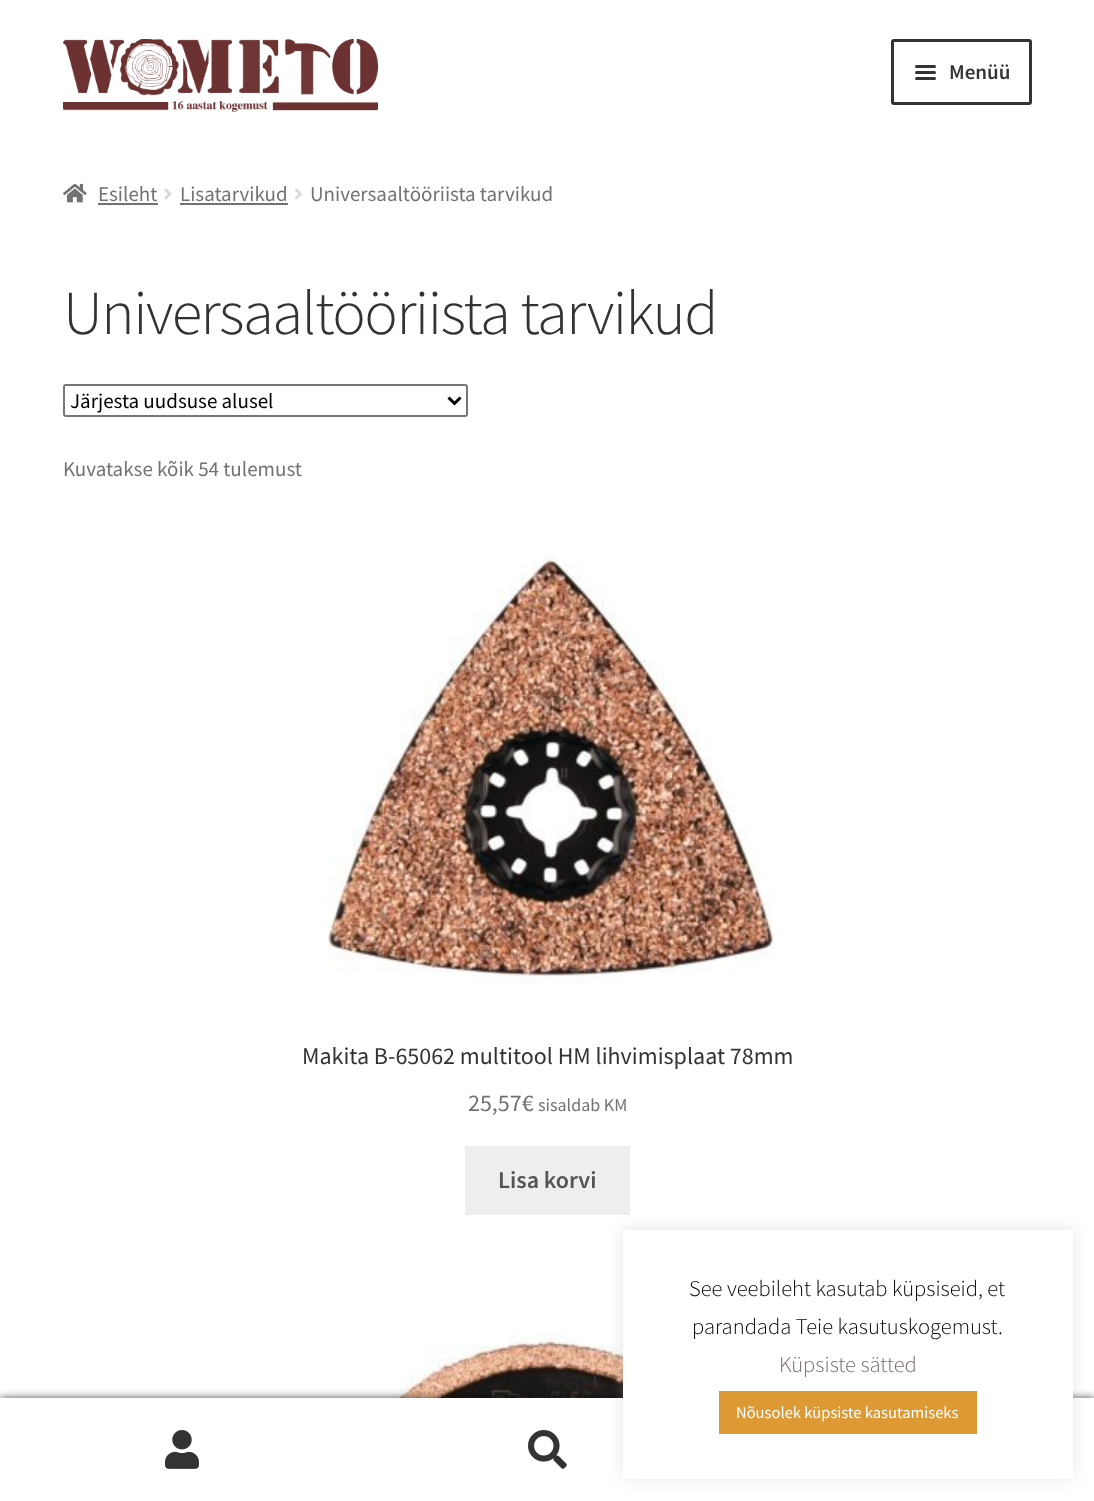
<svg xmlns="http://www.w3.org/2000/svg" width="1094" height="1501" viewBox="0 0 1094 1501">
  <defs>
    <filter id="blur1" x="-50%" y="-200%" width="200%" height="500%"><feGaussianBlur stdDeviation="4.5"/></filter>
    <filter id="blur2" x="-50%" y="-200%" width="200%" height="500%"><feGaussianBlur stdDeviation="7.5"/></filter>
  </defs>
  <rect width="100%" height="100%" fill="#ffffff"/>
  <image x="63" y="39" width="315" height="73" href="img1.png"/>
  <rect x="892.5" y="40.5" width="138" height="63" rx="1.5" fill="none" stroke="#333333" stroke-width="3"/>
  <rect x="915" y="65" width="21" height="3" rx="1.5" fill="#333333"/>
  <rect x="915" y="71" width="21" height="3" rx="1.5" fill="#333333"/>
  <text x="949" y="79" font-family="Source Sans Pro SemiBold" font-size="21" font-weight="600" fill="#333333">Menüü</text>
  <rect x="915" y="77" width="21" height="3" rx="1.5" fill="#333333"/>
  <image x="63" y="183" width="24" height="20" href="img2.png"/>
  <text x="98" y="201" font-family="Source Sans Pro" font-size="21" fill="#727272">Esileht</text>
  <rect x="98" y="203" width="60" height="2" fill="#727272"/>
  <image x="164" y="188" width="8" height="12" href="img3.png"/>
  <text x="180" y="201" font-family="Source Sans Pro" font-size="21" fill="#727272">Lisatarvikud</text>
  <rect x="180" y="203" width="108" height="2" fill="#727272"/>
  <image x="294" y="188" width="8" height="12" href="img4.png"/>
  <text x="310" y="201" font-family="Source Sans Pro" font-size="21" fill="#727272">Universaaltööriista tarvikud</text>
  <text x="63" y="334" font-family="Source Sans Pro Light" font-size="62.75" font-weight="300" letter-spacing="-1.5" fill="#333333">Universaaltööriista tarvikud</text>
  <rect x="64" y="385" width="403" height="31" rx="2" fill="none" stroke="#767676" stroke-width="2"/>
  <path d="M448.5 397.5L454.5 403.5L460.5 397.5" fill="none" stroke="#000000" stroke-width="3"/>
  <text x="70" y="408" font-family="Source Sans Pro" font-size="21" fill="#000000">Järjesta uudsuse alusel</text>
  <text x="63" y="476" font-family="Source Sans Pro" font-size="21" fill="#727272">Kuvatakse kõik 54 tulemust</text>
  <image x="328" y="553" width="445" height="431" href="img5.png"/>
  <text x="302" y="1064" font-family="Source Sans Pro" font-size="24" fill="#333333">Makita B-65062 multitool HM lihvimisplaat 78mm</text>
  <text x="468" y="1111" font-family="Source Sans Pro" font-size="24" fill="#727272">25,57€</text>
  <text x="538" y="1111" font-family="Source Sans Pro" font-size="18" fill="#727272">sisaldab KM</text>
  <rect x="465" y="1146" width="165" height="69" fill="#eeeeee"/>
  <text x="498" y="1188" font-family="Source Sans Pro SemiBold" font-size="24" font-weight="600" fill="#545454">Lisa korvi</text>
  <image x="328" y="1333" width="295" height="65" href="img6.png"/>
  <rect x="0" y="1398" width="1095" height="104" fill="#000000" fill-opacity="0.7" filter="url(#blur1)"/>
  <rect x="0" y="1398" width="1094" height="2" fill="#ffffff"/>
  <rect x="0" y="1400" width="1094" height="101" fill="#ffffff"/>
  <image x="165" y="1430" width="34" height="39" href="img7.png"/>
  <image x="528" y="1430" width="39" height="39" href="img8.png"/>
  <rect x="623" y="1229" width="450" height="249" fill="#acabab" fill-opacity="0.3" filter="url(#blur2)"/>
  <rect x="623" y="1230" width="450" height="249" fill="#ffffff"/>
  <text x="689" y="1296" font-family="Source Sans Pro Light" font-size="22.5" font-weight="300" fill="#000000">See veebileht kasutab küpsiseid, et</text>
  <text x="692" y="1334" font-family="Source Sans Pro Light" font-size="22.5" font-weight="300" fill="#000000">parandada Teie kasutuskogemust.</text>
  <text x="779" y="1372" font-family="Source Sans Pro Light" font-size="22.5" font-weight="300" fill="#7a6a68">Küpsiste sätted</text>
  <rect x="719" y="1391" width="258" height="43" fill="#dd9933"/>
  <text x="736" y="1418" font-family="Source Sans Pro" font-size="16.5" fill="#ffffff">Nõusolek küpsiste kasutamiseks</text>
</svg>
